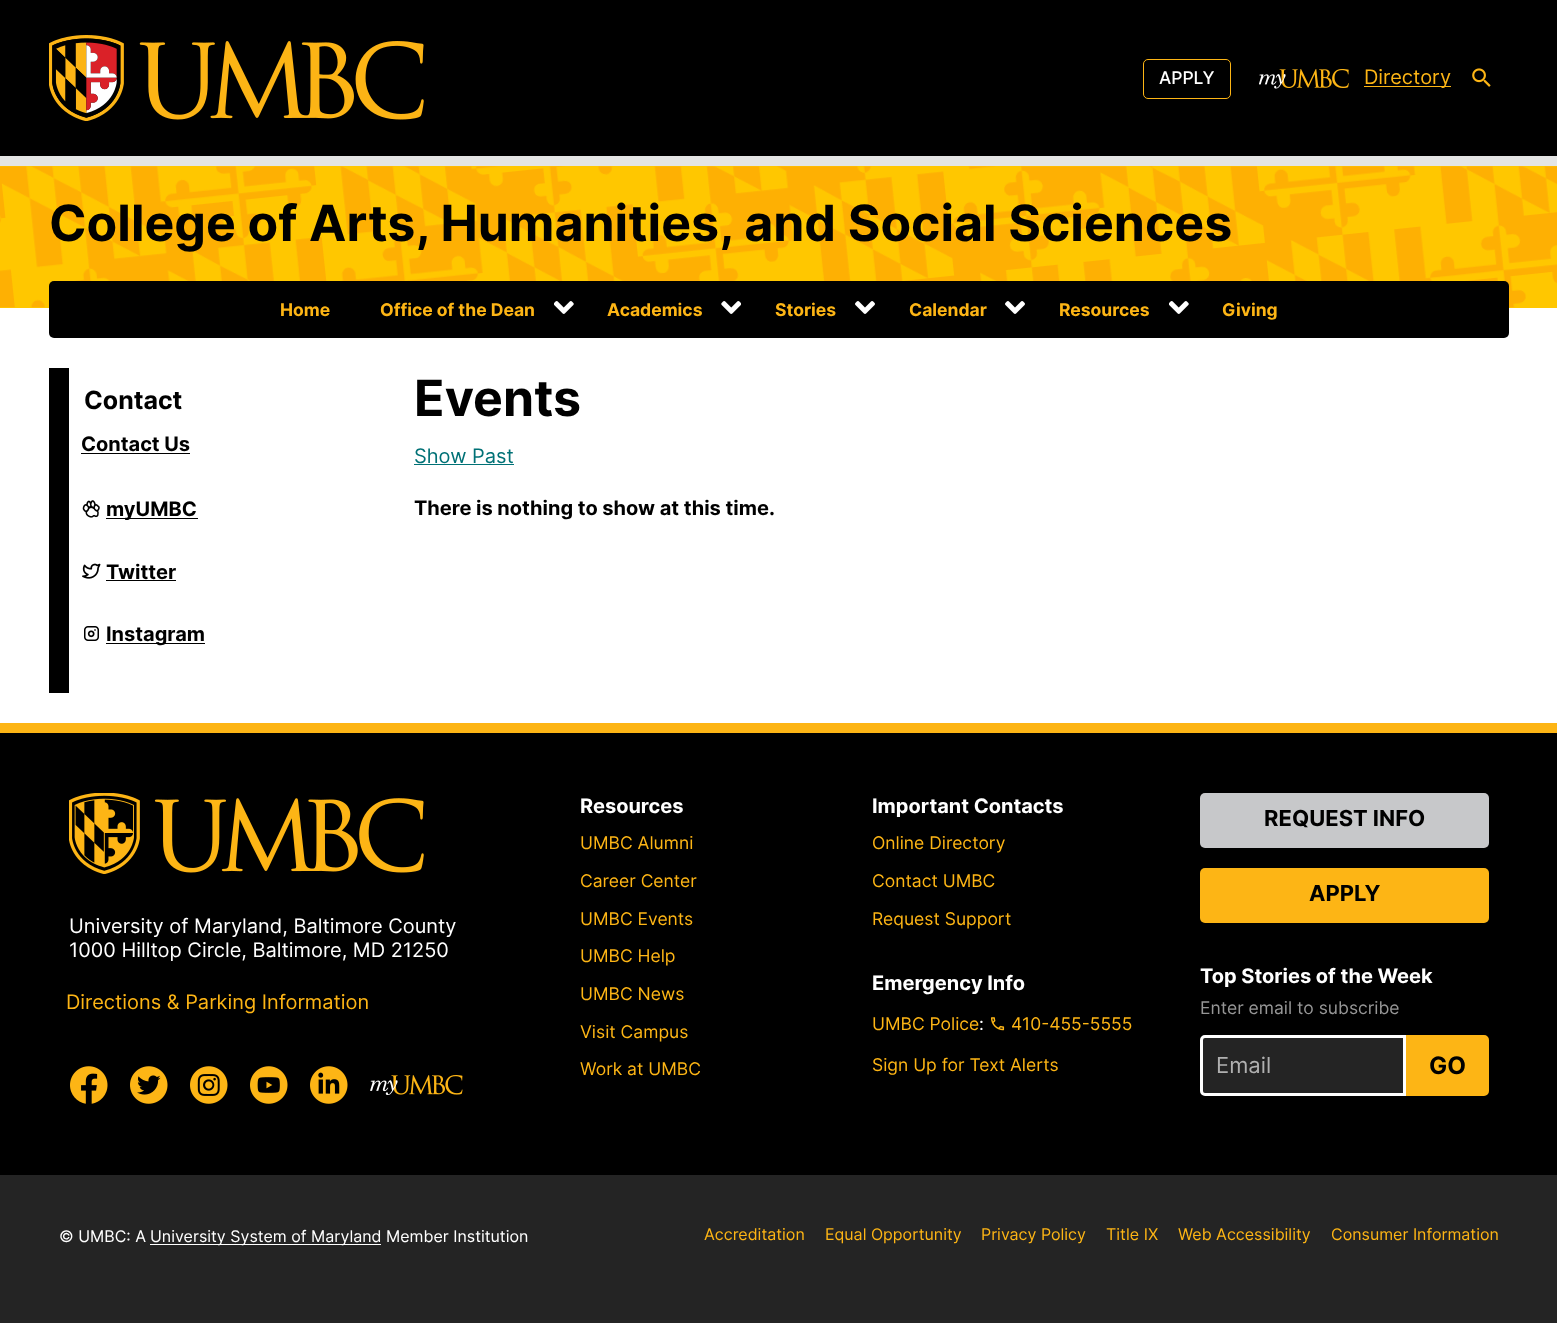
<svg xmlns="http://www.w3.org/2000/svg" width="1557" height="1323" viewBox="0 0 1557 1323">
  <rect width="100%" height="100%" fill="#ffffff"/>
  <rect x="0" y="0" width="1557" height="156" fill="#000000"/>
  <rect x="0" y="156" width="1557" height="10" fill="#e4e5e4"/>
  <image x="49" y="35" width="375" height="86" href="img1.png"/>
  <rect x="1143.5" y="59.5" width="87" height="39" rx="4.5" fill="none" stroke="#fdb515"/>
  <text x="1159" y="84" font-family="Inter" font-size="17.5" font-weight="500" fill="#ffffff">APPLY</text>
  <image x="1259" y="69" width="90" height="20" href="img2.png"/>
  <rect x="1364" y="86" width="87" height="1" fill="#fdb515"/>
  <text x="1364" y="84" font-family="Inter" font-size="20" fill="#fdb515">Directory</text>
  <image x="1472" y="68" width="19" height="19" href="img3.png"/>
  <rect x="0" y="166" width="1557" height="142" fill="#ffc700"/>
  <image x="0" y="166" width="1557" height="142" href="img4.png"/>
  <text x="49" y="241" font-family="Inter" font-size="50" font-weight="bold" fill="#000000">College of Arts, Humanities, and Social Sciences</text>
  <rect x="49" y="281" width="1460" height="57" rx="5" fill="#000000"/>
  <text x="280" y="316" font-family="Inter" font-size="17.5" font-weight="bold" fill="#fdb515">Home</text>
  <text x="380" y="316" font-family="Inter" font-size="17.5" font-weight="bold" fill="#fdb515">Office of the Dean</text>
  <image x="554" y="301" width="20" height="13" href="img5.png"/>
  <text x="607" y="316" font-family="Inter" font-size="17.5" font-weight="bold" fill="#fdb515">Academics</text>
  <image x="721" y="301" width="20" height="13" href="img6.png"/>
  <text x="775" y="316" font-family="Inter" font-size="17.5" font-weight="bold" fill="#fdb515">Stories</text>
  <image x="855" y="301" width="20" height="13" href="img7.png"/>
  <text x="909" y="316" font-family="Inter" font-size="17.5" font-weight="bold" fill="#fdb515">Calendar</text>
  <image x="1005" y="301" width="20" height="13" href="img7.png"/>
  <text x="1059" y="316" font-family="Inter" font-size="17.5" font-weight="bold" fill="#fdb515">Resources</text>
  <image x="1169" y="301" width="20" height="13" href="img5.png"/>
  <text x="1222" y="316" font-family="Inter" font-size="17.5" font-weight="bold" fill="#fdb515">Giving</text>
  <rect x="49" y="368" width="20" height="325" fill="#000000"/>
  <text x="84" y="409" font-family="Inter" font-size="25" font-weight="bold" fill="#000000">Contact</text>
  <text x="81" y="451" font-family="Inter" font-size="20" font-weight="bold" fill="#000000">Contact Us</text>
  <rect x="81" y="453" width="109" height="1" fill="#000000"/>
  <image x="82" y="500" width="18" height="18" href="img8.png"/>
  <rect x="106" y="518" width="92" height="1" fill="#000000"/>
  <text x="106" y="516" font-family="Inter" font-size="20" font-weight="bold" fill="#000000">myUMBC</text>
  <image x="82" y="563" width="19" height="16" href="img9.png"/>
  <text x="106" y="579" font-family="Inter" font-size="20" font-weight="bold" fill="#000000">Twitter</text>
  <rect x="106" y="580" width="70" height="1" fill="#000000"/>
  <image x="84" y="626" width="15" height="15" href="img10.png"/>
  <rect x="106" y="643" width="99" height="1" fill="#000000"/>
  <text x="106" y="641" font-family="Inter" font-size="20" font-weight="bold" fill="#000000">Instagram</text>
  <text x="414" y="416" font-family="Inter" font-size="50" font-weight="bold" fill="#000000">Events</text>
  <text x="414" y="463" font-family="Inter" font-size="20" fill="#007176">Show Past</text>
  <rect x="414" y="464" width="100" height="1" fill="#007176"/>
  <text x="414" y="515" font-family="Inter" font-size="20" font-weight="bold" fill="#000000">There is nothing to show at this time.</text>
  <rect x="0" y="733" width="1557" height="442" fill="#000000"/>
  <rect x="0" y="723" width="1557" height="10" fill="#fdb515"/>
  <image x="69" y="793" width="355" height="81" href="img11.png"/>
  <text x="69" y="933" font-family="Inter" font-size="20" fill="#ffffff">University of Maryland, Baltimore County</text>
  <text x="69" y="957" font-family="Inter" font-size="20" fill="#ffffff">1000 Hilltop Circle, Baltimore, MD 21250</text>
  <text x="66" y="1009" font-family="Inter" font-size="20" fill="#fdb515">Directions &amp; Parking Information</text>
  <image x="70" y="1066" width="38" height="38" href="img12.png"/>
  <image x="130" y="1066" width="38" height="38" href="img13.png"/>
  <image x="190" y="1066" width="38" height="38" href="img14.png"/>
  <image x="250" y="1066" width="38" height="38" href="img15.png"/>
  <image x="310" y="1066" width="38" height="38" href="img16.png"/>
  <image x="370" y="1075" width="93" height="20" href="img17.png"/>
  <text x="580" y="813" font-family="Inter" font-size="20" font-weight="bold" fill="#ffffff">Resources</text>
  <text x="580" y="849" font-family="Inter" font-size="17.5" fill="#fdb515">UMBC Alumni</text>
  <text x="580" y="887" font-family="Inter" font-size="17.5" fill="#fdb515">Career Center</text>
  <text x="580" y="925" font-family="Inter" font-size="17.5" fill="#fdb515">UMBC Events</text>
  <text x="580" y="962" font-family="Inter" font-size="17.5" fill="#fdb515">UMBC Help</text>
  <text x="580" y="1000" font-family="Inter" font-size="17.5" fill="#fdb515">UMBC News</text>
  <text x="580" y="1038" font-family="Inter" font-size="17.5" fill="#fdb515">Visit Campus</text>
  <text x="580" y="1075" font-family="Inter" font-size="17.5" fill="#fdb515">Work at UMBC</text>
  <text x="872" y="813" font-family="Inter" font-size="20" font-weight="bold" fill="#ffffff">Important Contacts</text>
  <text x="872" y="849" font-family="Inter" font-size="17.5" fill="#fdb515">Online Directory</text>
  <text x="872" y="887" font-family="Inter" font-size="17.5" fill="#fdb515">Contact UMBC</text>
  <text x="872" y="925" font-family="Inter" font-size="17.5" fill="#fdb515">Request Support</text>
  <text x="872" y="990" font-family="Inter" font-size="20" font-weight="bold" fill="#ffffff">Emergency Info</text>
  <text x="872" y="1030" font-family="Inter" font-size="17.5" fill="#fdb515">UMBC Police</text>
  <text x="979" y="1030" font-family="Inter" font-size="17.5" fill="#ffffff">:</text>
  <image x="991" y="1017" width="14" height="14" href="img18.png"/>
  <text x="1011" y="1030" font-family="Inter" font-size="17.5" fill="#fdb515">410-455-5555</text>
  <text x="872" y="1071" font-family="Inter" font-size="17.5" fill="#fdb515">Sign Up for Text Alerts</text>
  <rect x="1200" y="793" width="289" height="55" rx="5" fill="#c7c8ca"/>
  <text x="1264" y="826" font-family="Inter" font-size="22" font-weight="bold" fill="#000000">REQUEST INFO</text>
  <rect x="1200" y="868" width="289" height="55" rx="5" fill="#fdb515"/>
  <text x="1309" y="901" font-family="Inter" font-size="22" font-weight="bold" fill="#000000">APPLY</text>
  <text x="1200" y="983" font-family="Inter" font-size="20" font-weight="bold" fill="#ffffff">Top Stories of the Week</text>
  <text x="1200" y="1014" font-family="Inter" font-size="17.5" fill="#969696">Enter email to subscribe</text>
  <path d="M1205 1036.5H1404.5V1094.5H1205C1203 1094.5 1201.5 1093 1201.5 1091V1040C1201.5 1038 1203 1036.5 1205 1036.5Z" fill="#242424" stroke="#ffffff" stroke-width="3"/>
  <text x="1216" y="1073" font-family="Inter" font-size="22" fill="#b0b0b0">Email</text>
  <path d="M1407.5 1036.5H1484C1486 1036.5 1487.5 1038 1487.5 1040V1091C1487.5 1093 1486 1094.5 1484 1094.5H1407.5Z" fill="#fdb515" stroke="#fdb515" stroke-width="3"/>
  <text x="1429" y="1074" font-family="Inter" font-size="24" font-weight="bold" fill="#000000">GO</text>
  <rect x="0" y="1175" width="1557" height="148" fill="#242424"/>
  <text x="59" y="1242" font-family="Inter" font-size="16" fill="#ffffff">© UMBC: A</text>
  <rect x="150" y="1244" width="231" height="1" fill="#ffffff"/>
  <text x="150" y="1242" font-family="Inter" font-size="16" fill="#ffffff">University System of Maryland Member Institution</text>
  <text x="704" y="1240" font-family="Inter" font-size="16" fill="#fdb515">Accreditation</text>
  <text x="825" y="1240" font-family="Inter" font-size="16" fill="#fdb515">Equal Opportunity</text>
  <text x="981" y="1240" font-family="Inter" font-size="16" fill="#fdb515">Privacy Policy</text>
  <text x="1106" y="1240" font-family="Inter" font-size="16" fill="#fdb515">Title IX</text>
  <text x="1178" y="1240" font-family="Inter" font-size="16" fill="#fdb515">Web Accessibility</text>
  <text x="1331" y="1240" font-family="Inter" font-size="16" fill="#fdb515">Consumer Information</text>
</svg>
